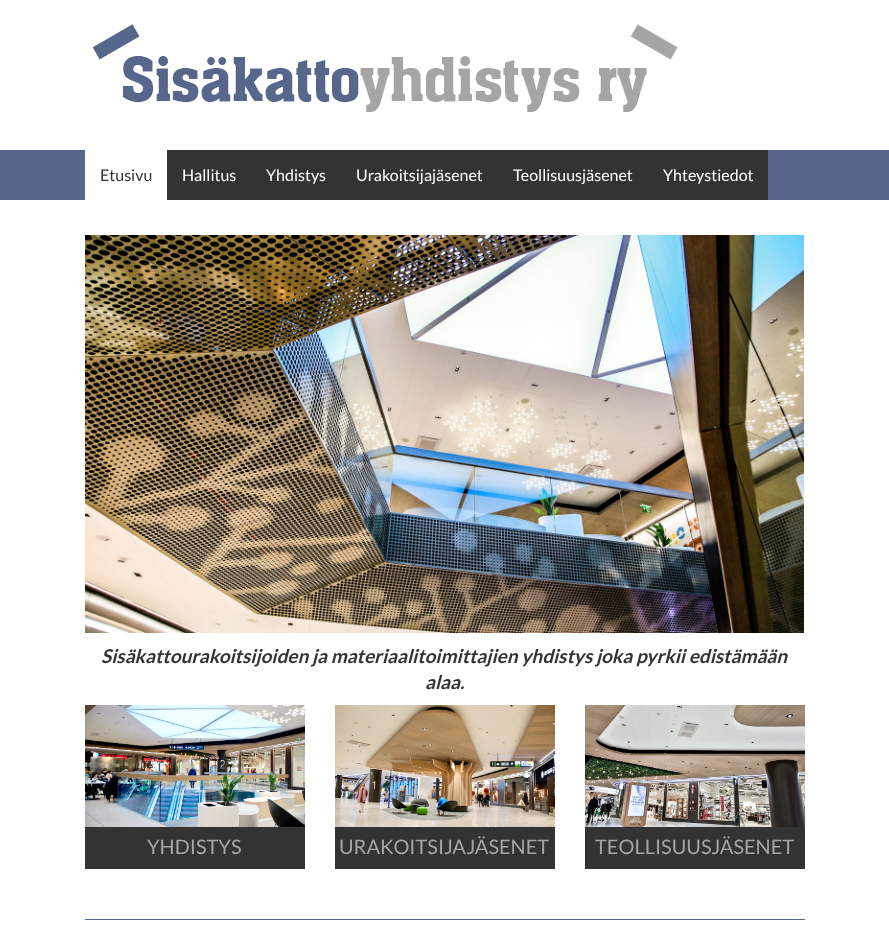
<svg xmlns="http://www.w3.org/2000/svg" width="889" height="928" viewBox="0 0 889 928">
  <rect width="100%" height="100%" fill="#ffffff"/>
  <image x="93" y="23" width="585" height="89" href="img1.png"/>
  <rect x="0" y="150" width="889" height="50" fill="#57678b"/>
  <rect x="85" y="150" width="82" height="50" fill="#ffffff"/>
  <text x="100" y="181" font-family="Lato" font-size="16" fill="#333333">Etusivu</text>
  <rect x="167" y="150" width="601" height="50" fill="#333333"/>
  <text x="182" y="181" font-family="Lato" font-size="16" fill="#ffffff">Hallitus</text>
  <text x="266" y="181" font-family="Lato" font-size="16" fill="#ffffff">Yhdistys</text>
  <text x="356" y="181" font-family="Lato" font-size="16" fill="#ffffff">Urakoitsijajäsenet</text>
  <text x="513" y="181" font-family="Lato" font-size="16" fill="#ffffff">Teollisuusjäsenet</text>
  <text x="663" y="181" font-family="Lato" font-size="16" fill="#ffffff">Yhteystiedot</text>
  <image x="85" y="235" width="719" height="398" href="img2.png"/>
  <text x="101" y="663" font-family="Lato" font-size="19" font-weight="bold" font-style="italic" fill="#333333">Sisäkattourakoitsijoiden ja materiaalitoimittajien yhdistys joka pyrkii edistämään</text>
  <text x="425" y="689" font-family="Lato" font-size="19" font-weight="bold" font-style="italic" fill="#333333">alaa.</text>
  <image x="85" y="705" width="220" height="122" href="img3.png"/>
  <rect x="85" y="827" width="220" height="42" fill="#333333"/>
  <text x="147" y="854" font-family="Lato" font-size="20" fill="#a5a5a5">YHDISTYS</text>
  <image x="335" y="705" width="220" height="122" href="img4.png"/>
  <rect x="335" y="827" width="220" height="42" fill="#333333"/>
  <text x="339" y="854" font-family="Lato" font-size="20" fill="#a5a5a5">URAKOITSIJAJÄSENET</text>
  <image x="585" y="705" width="220" height="122" href="img5.png"/>
  <rect x="585" y="827" width="220" height="42" fill="#333333"/>
  <text x="595" y="854" font-family="Lato" font-size="20" fill="#a5a5a5">TEOLLISUUSJÄSENET</text>
  <rect x="85" y="919" width="720" height="1" fill="#57678b"/>
</svg>
